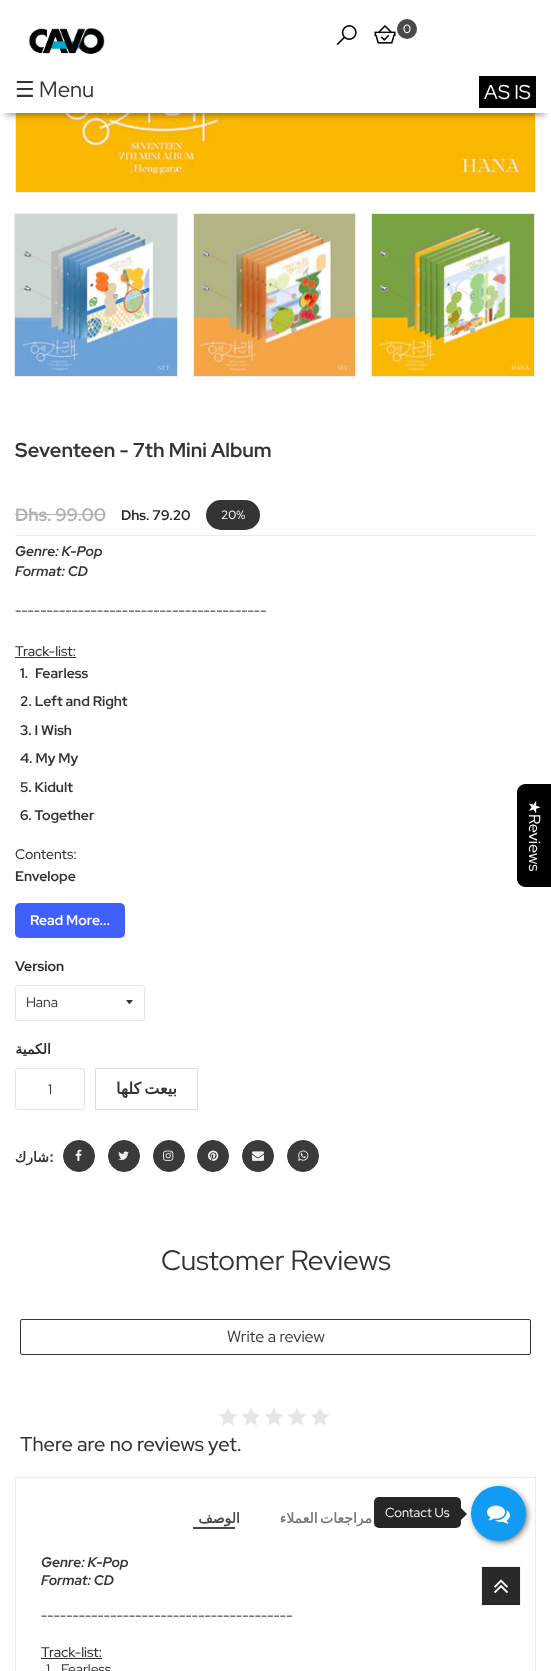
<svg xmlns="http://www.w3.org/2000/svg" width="551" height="1671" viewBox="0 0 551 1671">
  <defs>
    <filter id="blur1" x="-50%" y="-200%" width="200%" height="500%"><feGaussianBlur stdDeviation="3"/></filter>
    <filter id="blur2" x="-50%" y="-200%" width="200%" height="500%"><feGaussianBlur stdDeviation="4"/></filter>
  </defs>
  <rect width="100%" height="100%" fill="#ffffff"/>
  <rect x="15.5" y="-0.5" width="520" height="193" fill="none" stroke="#ededed"/>
  <image x="16" y="113" width="519" height="79" href="img4.png"/>
  <rect x="6" y="14" width="539" height="101" fill="#000000" fill-opacity="0.4" filter="url(#blur1)"/>
  <rect x="0" y="0" width="551" height="113" fill="#ffffff"/>
  <image x="28" y="27" width="77" height="28" href="img1.png"/>
  <image x="336" y="25" width="21" height="21" href="img2.png"/>
  <image x="374" y="25" width="22" height="19" href="img3.png"/>
  <circle cx="407" cy="29" r="10" fill="#4a4a4a"/>
  <text x="403" y="33" font-family="Red Hat Display" font-size="12" font-weight="500" fill="#ffffff">0</text>
  <text x="15" y="97" font-family="DejaVu Sans" font-size="22" fill="#333333">☰</text>
  <text x="39" y="97" font-family="Red Hat Display" font-size="22" fill="#333333">Menu</text>
  <rect x="479" y="76" width="57" height="32" fill="#000000"/>
  <text x="484" y="99" font-family="Red Hat Display" font-size="20" fill="#ffffff">AS IS</text>
  <rect x="14.5" y="213.5" width="163" height="163" fill="none" stroke="#ededed"/>
  <image x="15" y="214" width="162" height="162" href="img5.png"/>
  <rect x="193.5" y="213.5" width="162" height="163" fill="none" stroke="#ededed"/>
  <image x="194" y="214" width="162" height="162" href="img6.png"/>
  <rect x="371.5" y="213.5" width="163" height="163" fill="none" stroke="#ededed"/>
  <image x="372" y="214" width="162" height="162" href="img7.png"/>
  <text x="15" y="457" font-family="Red Hat Display" font-size="20" font-weight="bold" fill="#333333">Seventeen - 7th Mini Album</text>
  <rect x="15" y="535" width="521" height="1" fill="#ebebeb"/>
  <text x="15" y="521" font-family="Red Hat Display" font-size="18" font-weight="bold" fill="#b2b2b2">Dhs. 99.00</text>
  <rect x="15" y="514" width="91" height="1" fill="#b2b2b2"/>
  <text x="121" y="520" font-family="Red Hat Display" font-size="14" font-weight="bold" fill="#292929">Dhs. 79.20</text>
  <rect x="206" y="500" width="54" height="30" rx="15" fill="#343434"/>
  <text x="221" y="519" font-family="Red Hat Display" font-size="12" font-weight="500" fill="#ffffff">20%</text>
  <text x="15" y="556" font-family="Red Hat Display" font-size="14" font-weight="bold" font-style="italic" fill="#333333">Genre: K-Pop</text>
  <text x="15" y="576" font-family="Red Hat Display" font-size="14" font-weight="bold" font-style="italic" fill="#333333">Format: CD</text>
  <text x="15" y="616" font-family="Red Hat Display" font-size="14" font-weight="500" fill="#333333">----------------------------------------</text>
  <text x="15" y="656" font-family="Red Hat Display" font-size="14" font-weight="500" fill="#333333">Track-list:</text>
  <rect x="15" y="657" width="61" height="1" fill="#333333"/>
  <text x="20" y="678" font-family="Red Hat Display" font-size="14" font-weight="bold" fill="#333333">1.</text>
  <text x="35" y="678" font-family="Red Hat Display" font-size="14" font-weight="bold" fill="#333333">Fearless</text>
  <text x="20" y="706" font-family="Red Hat Display" font-size="14" font-weight="bold" fill="#333333">2. Left and Right</text>
  <text x="20" y="735" font-family="Red Hat Display" font-size="14" font-weight="bold" fill="#333333">3. I Wish</text>
  <text x="20" y="763" font-family="Red Hat Display" font-size="14" font-weight="bold" fill="#333333">4. My My</text>
  <text x="20" y="792" font-family="Red Hat Display" font-size="14" font-weight="bold" fill="#333333">5. Kidult</text>
  <text x="20" y="820" font-family="Red Hat Display" font-size="14" font-weight="bold" fill="#333333">6. Together</text>
  <text x="15" y="859" font-family="Red Hat Display" font-size="14" font-weight="500" fill="#333333">Contents:</text>
  <text x="15" y="881" font-family="Red Hat Display" font-size="14" font-weight="bold" fill="#333333">Envelope</text>
  <rect x="15" y="903" width="110" height="35" rx="5" fill="#4060fd"/>
  <text x="30" y="925" font-family="Red Hat Display" font-size="14" font-weight="bold" fill="#ffffff">Read More...</text>
  <text x="15" y="971" font-family="Red Hat Display" font-size="14" font-weight="bold" fill="#292929">Version</text>
  <path d="M126 1000C130.5 1005.5 128.5 1005.5 133 1000Z" fill="#333333"/>
  <rect x="15.5" y="985.5" width="129" height="35" rx="2.5" fill="none" stroke="#e5e5e5"/>
  <text x="26" y="1007" font-family="Red Hat Display" font-size="14" fill="#333333">Hana</text>
  <text x="51" y="1054" font-family="DejaVu Sans" font-size="14" font-weight="bold" direction="rtl" fill="#292929">الكمية</text>
  <rect x="15.5" y="1068.5" width="69" height="41" rx="2.5" fill="none" stroke="#e5e5e5"/>
  <text x="48" y="1094" font-family="Red Hat Display" font-size="14" fill="#333333">1</text>
  <rect x="95.5" y="1068.5" width="102" height="41" fill="none" stroke="#dddddd"/>
  <text x="177" y="1094" word-spacing="-2" font-family="DejaVu Sans" font-size="16" font-weight="bold" direction="rtl" fill="#333333">بيعت كلها</text>
  <text x="49" y="1162" font-family="DejaVu Sans" font-size="14" font-weight="bold" direction="rtl" fill="#333333">شارك</text>
  <text x="49" y="1162" font-family="DejaVu Sans" font-size="14" font-weight="bold" fill="#333333">:</text>
  <circle cx="79" cy="1156" r="15.5" fill="#3a3a3a" stroke="#3a3a3a"/>
  <image x="75" y="1149" width="7" height="12" href="img8.png"/>
  <circle cx="124" cy="1156" r="15.5" fill="#3a3a3a" stroke="#3a3a3a"/>
  <image x="118" y="1151" width="11" height="9" href="img9.png"/>
  <circle cx="169" cy="1156" r="15.5" fill="#3a3a3a" stroke="#3a3a3a"/>
  <image x="163" y="1150" width="11" height="11" href="img10.png"/>
  <circle cx="213" cy="1156" r="15.5" fill="#3a3a3a" stroke="#3a3a3a"/>
  <image x="208" y="1150" width="11" height="11" href="img11.png"/>
  <circle cx="258" cy="1156" r="15.5" fill="#3a3a3a" stroke="#3a3a3a"/>
  <image x="252" y="1151" width="12" height="10" href="img12.png"/>
  <circle cx="303" cy="1156" r="15.5" fill="#3a3a3a" stroke="#3a3a3a"/>
  <image x="298" y="1150" width="11" height="11" href="img13.png"/>
  <text x="161" y="1270" font-family="Red Hat Display" font-size="28" fill="#333333">Customer Reviews</text>
  <rect x="20.5" y="1319.5" width="510" height="35" rx="1.5" fill="none" stroke="#333333"/>
  <text x="227" y="1342" font-family="Red Hat Display" font-size="16" fill="#333333">Write a review</text>
  <image x="219" y="1408" width="18" height="18" href="img14.png"/>
  <image x="242" y="1408" width="18" height="18" href="img14.png"/>
  <image x="265" y="1408" width="18" height="18" href="img14.png"/>
  <image x="288" y="1408" width="18" height="18" href="img14.png"/>
  <image x="311" y="1408" width="18" height="18" href="img14.png"/>
  <text x="20" y="1451" font-family="Red Hat Display" font-size="20" font-weight="500" fill="#333333">There are no reviews yet.</text>
  <rect x="15.5" y="1477.5" width="520" height="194" fill="none" stroke="#ebebeb"/>
  <text x="240" y="1523" font-family="DejaVu Sans" font-size="14" font-weight="bold" letter-spacing="1" direction="rtl" fill="#484848">الوصف</text>
  <rect x="193" y="1527" width="42" height="2" fill="#484848"/>
  <text x="372" y="1523" word-spacing="-2" font-family="DejaVu Sans" font-size="14" font-weight="bold" letter-spacing="1" direction="rtl" fill="#7a7a7a">مراجعات العملاء</text>
  <text x="41" y="1567" font-family="Red Hat Display" font-size="14" font-weight="bold" font-style="italic" fill="#333333">Genre: K-Pop</text>
  <text x="41" y="1585" font-family="Red Hat Display" font-size="14" font-weight="bold" font-style="italic" fill="#333333">Format: CD</text>
  <text x="41" y="1621" font-family="Red Hat Display" font-size="14" font-weight="500" fill="#333333">----------------------------------------</text>
  <text x="41" y="1657" font-family="Red Hat Display" font-size="14" font-weight="500" fill="#333333">Track-list:</text>
  <rect x="41" y="1658" width="61" height="1" fill="#333333"/>
  <text x="46" y="1674" font-family="Red Hat Display" font-size="14" fill="#333333">1</text>
  <text x="61" y="1674" font-family="Red Hat Display" font-size="14" fill="#333333">Fearless</text>
  <path d="M551 784V887H525C521 887 517 883 517 879V792C517 788 521 784 525 784Z" fill="#000000"/>
  <text x="529" y="800" transform="rotate(90 529 800)" font-family="DejaVu Sans" font-size="16" fill="#ffffff">★</text>
  <text x="529" y="814" transform="rotate(90 529 814)" font-family="Red Hat Display" font-size="16" fill="#ffffff">Reviews</text>
  <rect x="476" y="1491" width="49" height="49" rx="24.5" fill="#000000" filter="url(#blur2)"/>
  <circle cx="498.5" cy="1513.5" r="27.5" fill="#129bf4"/>
  <rect x="374" y="1497" width="87" height="31" rx="5" fill="#262626"/>
  <text x="385" y="1517" font-family="Red Hat Display" font-size="13" fill="#ffffff">Contact Us</text>
  <path d="M461 1520V1508L467 1514Z" fill="#262626"/>
  <image x="487" y="1505" width="23" height="19" href="img15.png"/>
  <rect x="481.5" y="1566.5" width="39" height="39" fill="#292929" stroke="#f3f3f3"/>
  <image x="494" y="1579" width="14" height="14" href="img16.png"/>
</svg>
